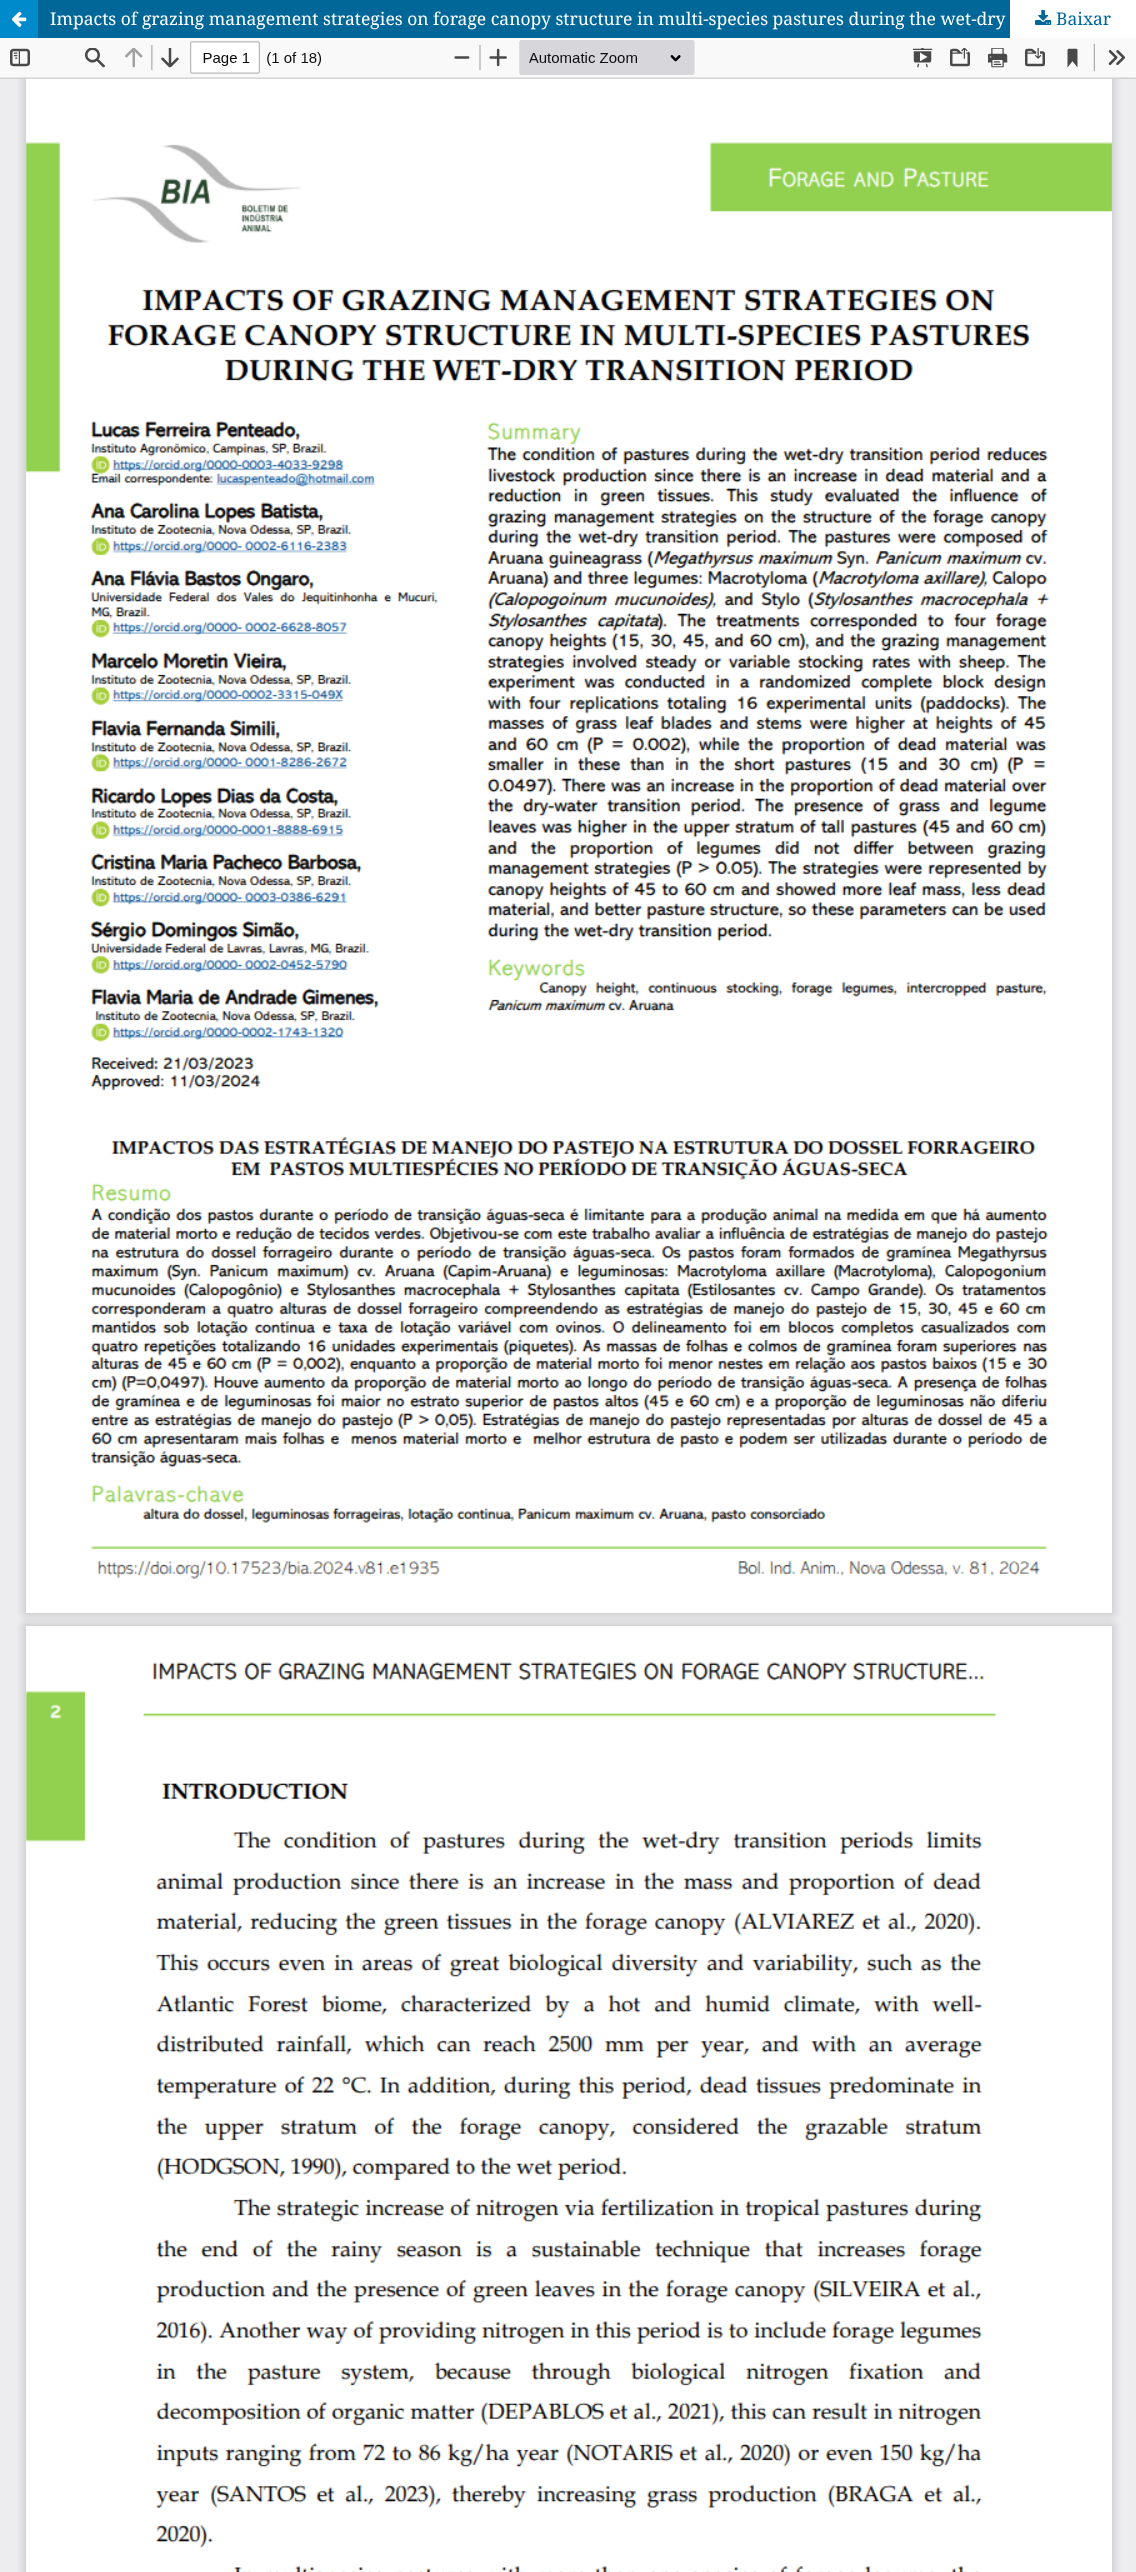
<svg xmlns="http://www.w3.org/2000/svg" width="1136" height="2572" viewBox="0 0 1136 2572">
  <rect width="100%" height="100%" fill="#ffffff"/>
  <rect x="38" y="0" width="972" height="38" fill="#006798"/>
  <rect x="0" y="0" width="38" height="38" fill="#008acb"/>
  <image x="11" y="11" width="16" height="16" href="img1.png"/>
  <text x="50" y="25" font-family="Noto Serif" font-size="17.5" fill="#ffffff">Impacts of grazing management strategies on forage canopy structure in multi-species pastures during the wet-dry</text>
  <image x="1035" y="10" width="17" height="15" href="img2.png"/>
  <text x="1056" y="25" font-family="Noto Serif" font-size="17.5" fill="#006798">Baixar</text>
  <image x="0" y="38" width="1136" height="2534" href="img3.png"/>
</svg>
